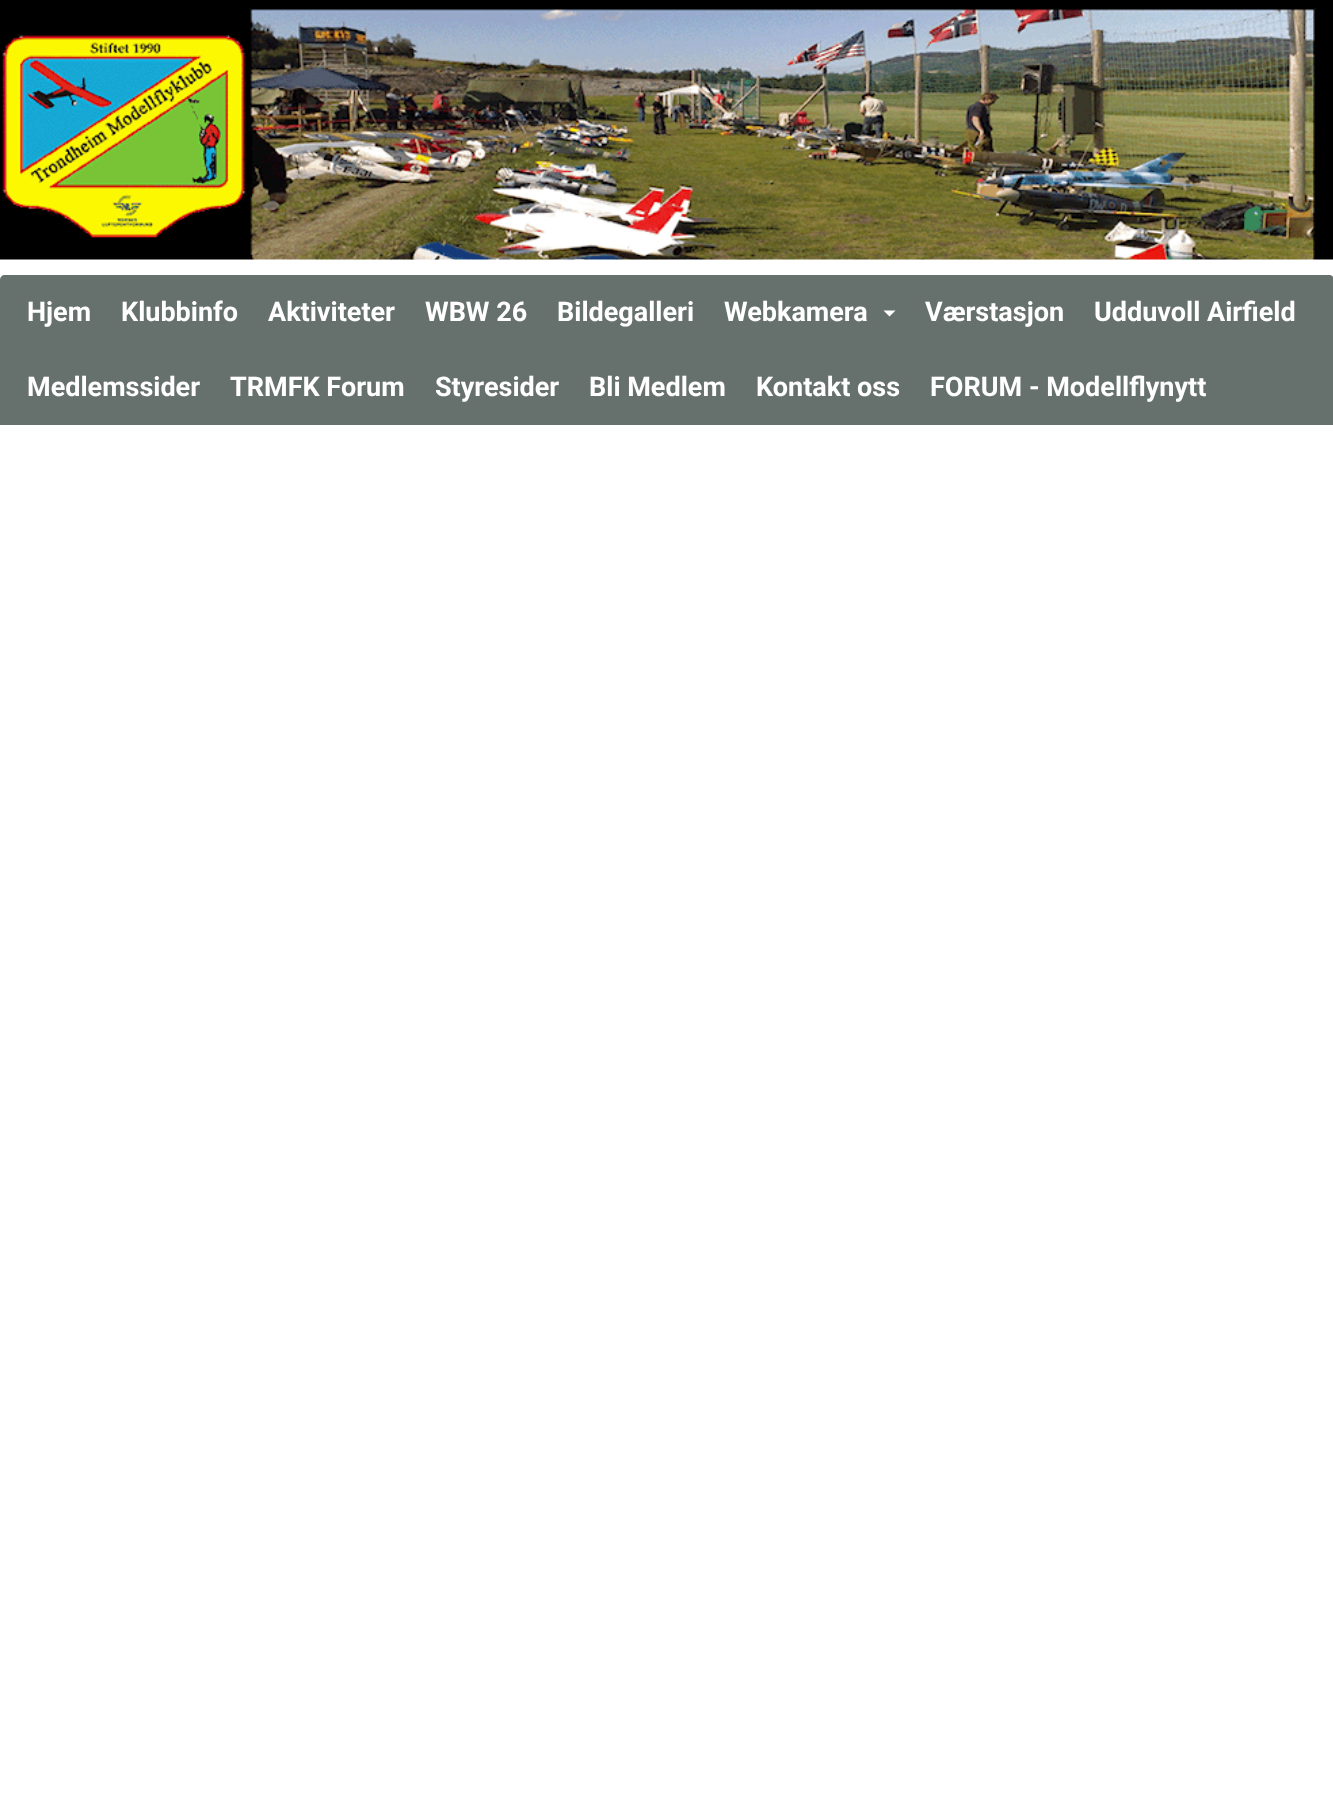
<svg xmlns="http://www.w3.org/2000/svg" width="1333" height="1819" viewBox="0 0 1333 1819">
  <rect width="100%" height="100%" fill="#ffffff"/>
  <image x="0" y="0" width="1333" height="260" href="img1.png"/>
  <path d="M5 275H1329C1332 275 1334 277 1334 280V425H0V280C0 277 2 275 5 275Z" fill="#66706d"/>
  <text x="27" y="321" font-family="Roboto" font-size="27" font-weight="bold" fill="#ffffff">Hjem</text>
  <text x="121" y="321" font-family="Roboto" font-size="27" font-weight="bold" fill="#ffffff">Klubbinfo</text>
  <text x="268" y="321" font-family="Roboto" font-size="27" font-weight="bold" fill="#ffffff">Aktiviteter</text>
  <text x="425" y="321" font-family="Roboto" font-size="27" font-weight="bold" fill="#ffffff">WBW 26</text>
  <text x="557" y="321" font-family="Roboto" font-size="27" font-weight="bold" fill="#ffffff">Bildegalleri</text>
  <text x="724" y="321" font-family="Roboto" font-size="27" font-weight="bold" fill="#ffffff">Webkamera</text>
  <path d="M883.5 310.5H895.5L889.5 316.5Z" fill="#ffffff"/>
  <text x="925" y="321" font-family="Roboto" font-size="27" font-weight="bold" fill="#ffffff">Værstasjon</text>
  <text x="1094" y="321" font-family="Roboto" font-size="27" font-weight="bold" fill="#ffffff">Udduvoll Airfield</text>
  <text x="27" y="396" font-family="Roboto" font-size="27" font-weight="bold" fill="#ffffff">Medlemssider</text>
  <text x="230" y="396" font-family="Roboto" font-size="27" font-weight="bold" fill="#ffffff">TRMFK Forum</text>
  <text x="435" y="396" font-family="Roboto" font-size="27" font-weight="bold" fill="#ffffff">Styresider</text>
  <text x="589" y="396" font-family="Roboto" font-size="27" font-weight="bold" fill="#ffffff">Bli Medlem</text>
  <text x="756" y="396" font-family="Roboto" font-size="27" font-weight="bold" fill="#ffffff">Kontakt oss</text>
  <text x="930" y="396" font-family="Roboto" font-size="27" font-weight="bold" fill="#ffffff">FORUM - Modellflynytt</text>
</svg>
